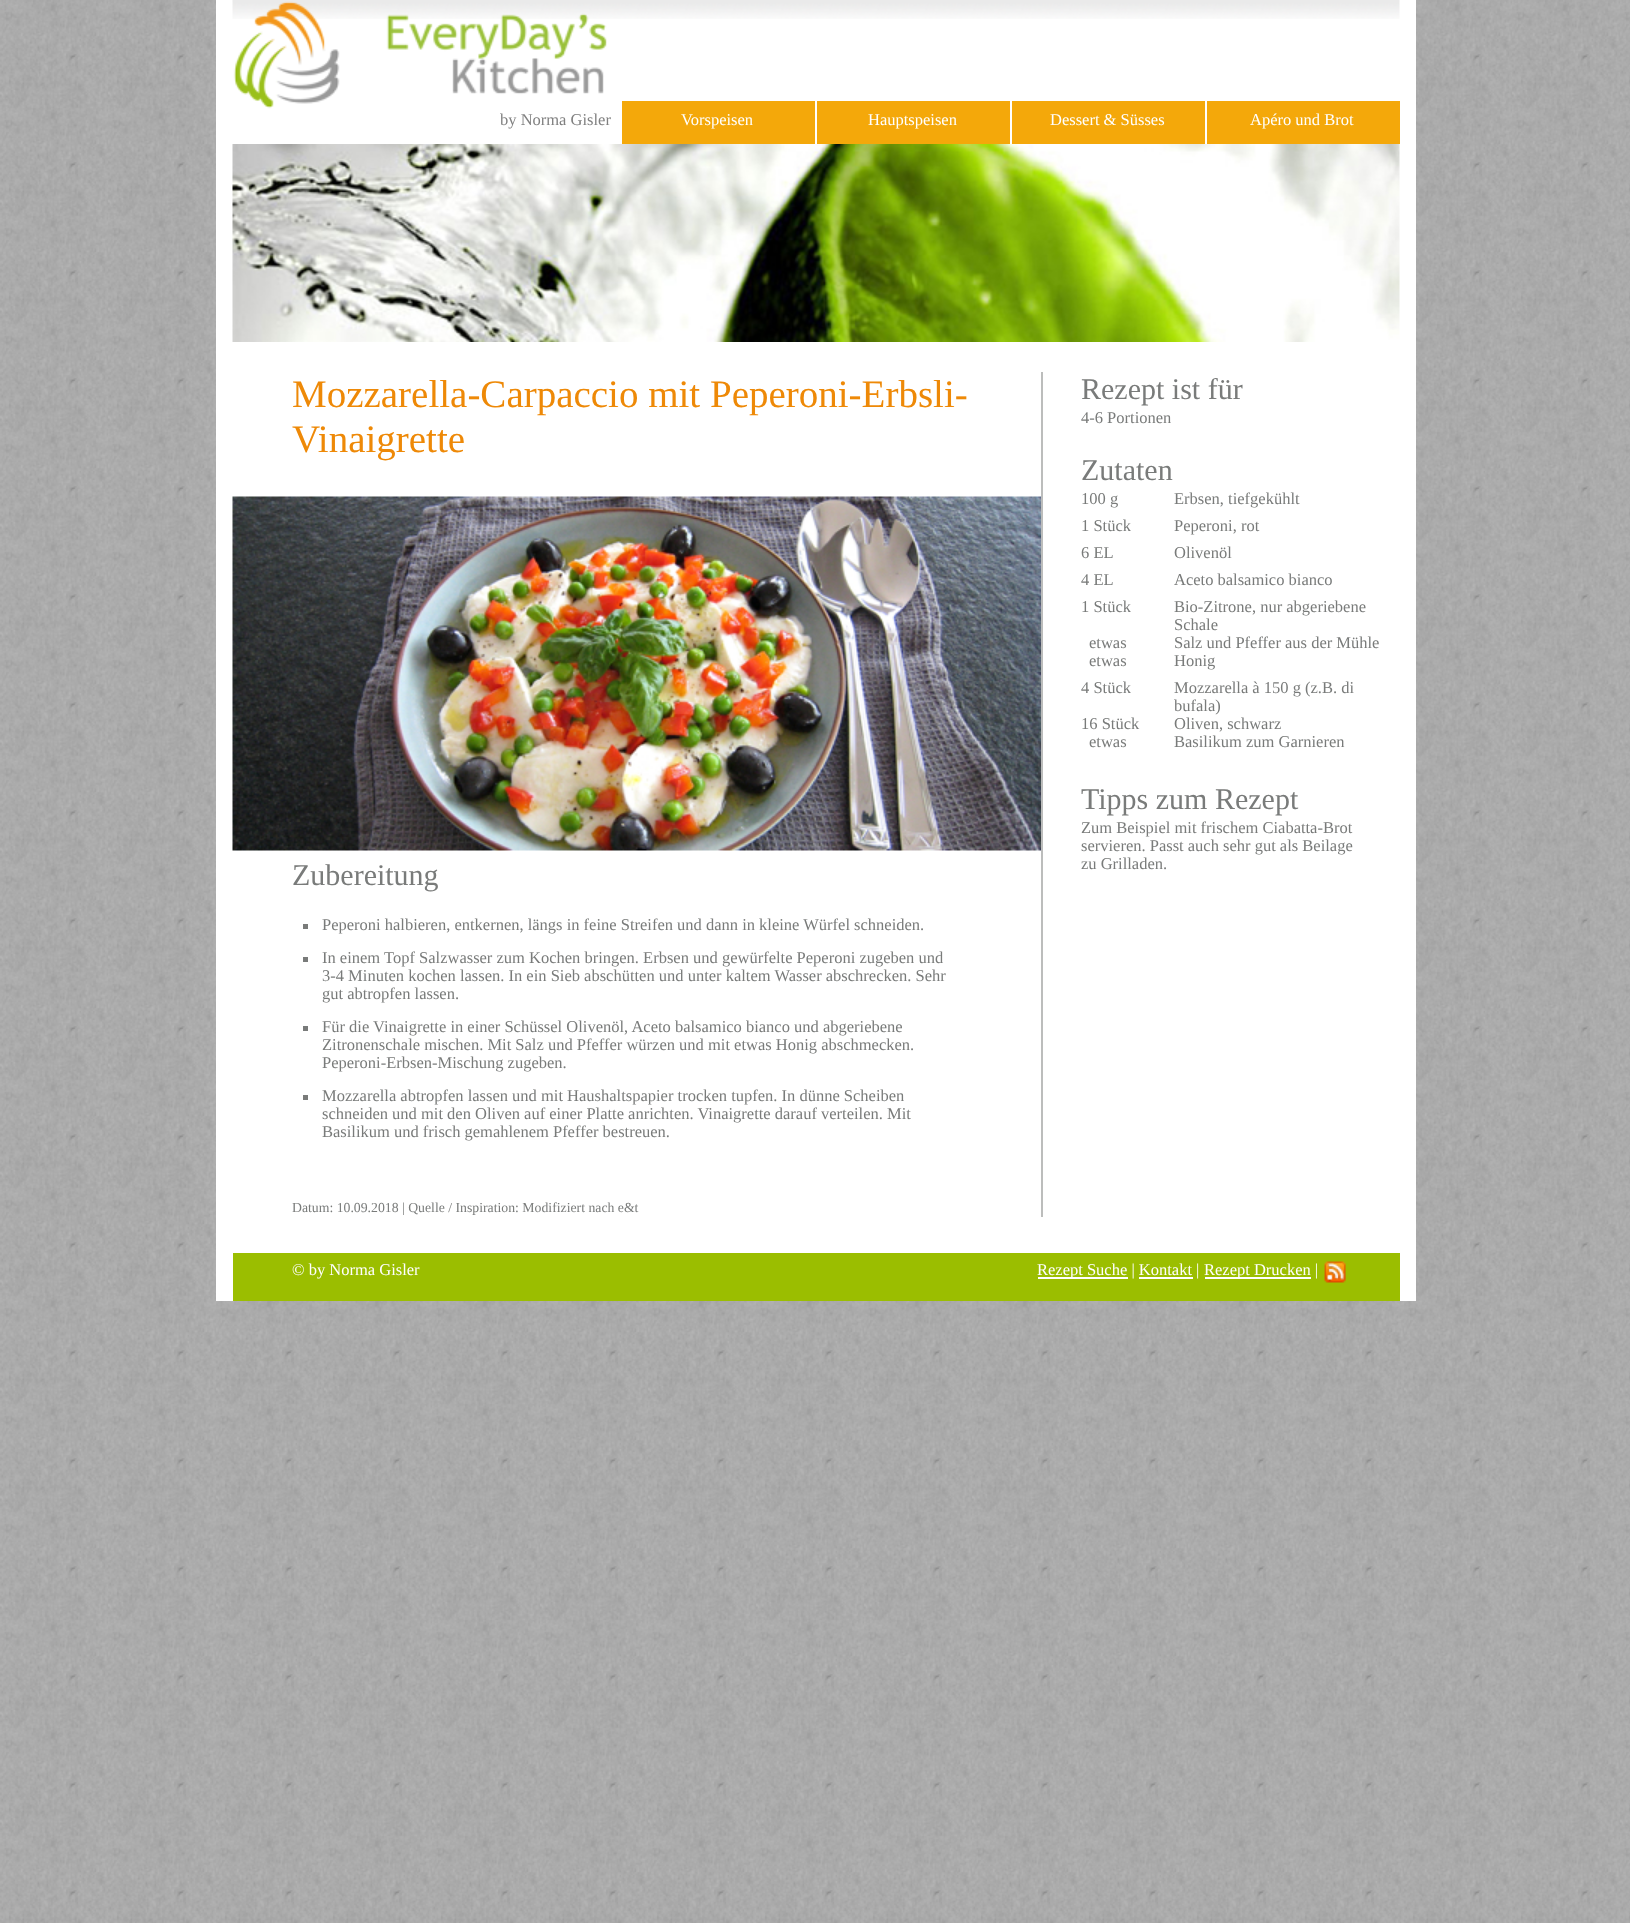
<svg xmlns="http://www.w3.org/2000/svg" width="1630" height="1923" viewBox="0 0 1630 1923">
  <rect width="100%" height="100%" fill="#ffffff"/>
  <image x="0" y="0" width="1630" height="1923" href="img1.png"/>
  <rect x="216" y="0" width="1200" height="1301" fill="#ffffff"/>
  <image x="232" y="0" width="1168" height="19" href="img2.png"/>
  <image x="233" y="1" width="374" height="108" href="img3.png"/>
  <text x="500" y="125" font-family="Liberation Serif" font-size="16.5" fill="#808080">by Norma Gisler</text>
  <rect x="622" y="101" width="193" height="43" fill="#f4a80a"/>
  <text x="681" y="125" font-family="Liberation Serif" font-size="16.5" fill="#ffffff">Vorspeisen</text>
  <rect x="817" y="101" width="193" height="43" fill="#f4a80a"/>
  <text x="868" y="125" font-family="Liberation Serif" font-size="16.5" fill="#ffffff">Hauptspeisen</text>
  <rect x="1012" y="101" width="193" height="43" fill="#f4a80a"/>
  <text x="1050" y="125" font-family="Liberation Serif" font-size="16.5" fill="#ffffff">Dessert &amp; Süsses</text>
  <rect x="1207" y="101" width="193" height="43" fill="#f4a80a"/>
  <text x="1250" y="125" font-family="Liberation Serif" font-size="16.5" fill="#ffffff">Apéro und Brot</text>
  <image x="232" y="144" width="1168" height="198" href="img4.png"/>
  <rect x="1041" y="372" width="2" height="845" fill="#bcbdbc"/>
  <text x="292" y="407" font-family="Liberation Serif" font-size="39" fill="#ee8907">Mozzarella-Carpaccio mit Peperoni-Erbsli-</text>
  <text x="292" y="452" font-family="Liberation Serif" font-size="39" fill="#ee8907">Vinaigrette</text>
  <image x="232" y="496" width="809" height="355" href="img5.png"/>
  <text x="292" y="885" font-family="Liberation Serif" font-size="30" fill="#797b7a">Zubereitung</text>
  <rect x="303" y="924" width="5" height="5" fill="#797b7a"/>
  <text x="322" y="930" font-family="Liberation Serif" font-size="16.5" fill="#797b7a">Peperoni halbieren, entkernen, längs in feine Streifen und dann in kleine Würfel schneiden.</text>
  <rect x="303" y="957" width="5" height="5" fill="#797b7a"/>
  <text x="322" y="963" font-family="Liberation Serif" font-size="16.5" fill="#797b7a">In einem Topf Salzwasser zum Kochen bringen. Erbsen und gewürfelte Peperoni zugeben und</text>
  <text x="322" y="981" font-family="Liberation Serif" font-size="16.5" fill="#797b7a">3-4 Minuten kochen lassen. In ein Sieb abschütten und unter kaltem Wasser abschrecken. Sehr</text>
  <text x="322" y="999" font-family="Liberation Serif" font-size="16.5" fill="#797b7a">gut abtropfen lassen.</text>
  <rect x="303" y="1026" width="5" height="5" fill="#797b7a"/>
  <text x="322" y="1032" font-family="Liberation Serif" font-size="16.5" fill="#797b7a">Für die Vinaigrette in einer Schüssel Olivenöl, Aceto balsamico bianco und abgeriebene</text>
  <text x="322" y="1050" font-family="Liberation Serif" font-size="16.5" fill="#797b7a">Zitronenschale mischen. Mit Salz und Pfeffer würzen und mit etwas Honig abschmecken.</text>
  <text x="322" y="1068" font-family="Liberation Serif" font-size="16.5" fill="#797b7a">Peperoni-Erbsen-Mischung zugeben.</text>
  <rect x="303" y="1095" width="5" height="5" fill="#797b7a"/>
  <text x="322" y="1101" font-family="Liberation Serif" font-size="16.5" fill="#797b7a">Mozzarella abtropfen lassen und mit Haushaltspapier trocken tupfen. In dünne Scheiben</text>
  <text x="322" y="1119" font-family="Liberation Serif" font-size="16.5" fill="#797b7a">schneiden und mit den Oliven auf einer Platte anrichten. Vinaigrette darauf verteilen. Mit</text>
  <text x="322" y="1137" font-family="Liberation Serif" font-size="16.5" fill="#797b7a">Basilikum und frisch gemahlenem Pfeffer bestreuen.</text>
  <text x="292" y="1212" font-family="Liberation Serif" font-size="13.75" fill="#797b7a">Datum: 10.09.2018 | Quelle / Inspiration: Modifiziert nach e&amp;t</text>
  <text x="1081" y="399" font-family="Liberation Serif" font-size="30" fill="#797b7a">Rezept ist für</text>
  <text x="1081" y="423" font-family="Liberation Serif" font-size="16.5" fill="#797b7a">4-6 Portionen</text>
  <text x="1081" y="480" font-family="Liberation Serif" font-size="30" fill="#797b7a">Zutaten</text>
  <text x="1081" y="504" font-family="Liberation Serif" font-size="16.5" fill="#797b7a">100 g</text>
  <text x="1174" y="504" font-family="Liberation Serif" font-size="16.5" fill="#797b7a">Erbsen, tiefgekühlt</text>
  <text x="1081" y="531" font-family="Liberation Serif" font-size="16.5" fill="#797b7a">1 Stück</text>
  <text x="1174" y="531" font-family="Liberation Serif" font-size="16.5" fill="#797b7a">Peperoni, rot</text>
  <text x="1081" y="558" font-family="Liberation Serif" font-size="16.5" fill="#797b7a">6 EL</text>
  <text x="1174" y="558" font-family="Liberation Serif" font-size="16.5" fill="#797b7a">Olivenöl</text>
  <text x="1081" y="585" font-family="Liberation Serif" font-size="16.5" fill="#797b7a">4 EL</text>
  <text x="1174" y="585" font-family="Liberation Serif" font-size="16.5" fill="#797b7a">Aceto balsamico bianco</text>
  <text x="1081" y="612" font-family="Liberation Serif" font-size="16.5" fill="#797b7a">1 Stück</text>
  <text x="1174" y="612" font-family="Liberation Serif" font-size="16.5" fill="#797b7a">Bio-Zitrone, nur abgeriebene</text>
  <text x="1174" y="630" font-family="Liberation Serif" font-size="16.5" fill="#797b7a">Schale</text>
  <text x="1089" y="648" font-family="Liberation Serif" font-size="16.5" fill="#797b7a">etwas</text>
  <text x="1174" y="648" font-family="Liberation Serif" font-size="16.5" fill="#797b7a">Salz und Pfeffer aus der Mühle</text>
  <text x="1089" y="666" font-family="Liberation Serif" font-size="16.5" fill="#797b7a">etwas</text>
  <text x="1174" y="666" font-family="Liberation Serif" font-size="16.5" fill="#797b7a">Honig</text>
  <text x="1081" y="693" font-family="Liberation Serif" font-size="16.5" fill="#797b7a">4 Stück</text>
  <text x="1174" y="693" font-family="Liberation Serif" font-size="16.5" fill="#797b7a">Mozzarella à 150 g (z.B. di</text>
  <text x="1174" y="711" font-family="Liberation Serif" font-size="16.5" fill="#797b7a">bufala)</text>
  <text x="1081" y="729" font-family="Liberation Serif" font-size="16.5" fill="#797b7a">16 Stück</text>
  <text x="1174" y="729" font-family="Liberation Serif" font-size="16.5" fill="#797b7a">Oliven, schwarz</text>
  <text x="1089" y="747" font-family="Liberation Serif" font-size="16.5" fill="#797b7a">etwas</text>
  <text x="1174" y="747" font-family="Liberation Serif" font-size="16.5" fill="#797b7a">Basilikum zum Garnieren</text>
  <text x="1081" y="809" font-family="Liberation Serif" font-size="30" fill="#797b7a">Tipps zum Rezept</text>
  <text x="1081" y="833" font-family="Liberation Serif" font-size="16.5" fill="#797b7a">Zum Beispiel mit frischem Ciabatta-Brot</text>
  <text x="1081" y="851" font-family="Liberation Serif" font-size="16.5" fill="#797b7a">servieren. Passt auch sehr gut als Beilage</text>
  <text x="1081" y="869" font-family="Liberation Serif" font-size="16.5" fill="#797b7a">zu Grilladen.</text>
  <rect x="233" y="1253" width="1167" height="48" fill="#9bbe00"/>
  <text x="292" y="1275" font-family="Liberation Serif" font-size="16.5" fill="#ffffff">© by Norma Gisler</text>
  <rect x="1038" y="1277" width="90" height="2" fill="#ffffff"/>
  <text x="1037" y="1275" font-family="Liberation Serif" font-size="16.5" fill="#ffffff">Rezept Suche | Kontakt |</text>
  <rect x="1205" y="1277" width="106" height="2" fill="#ffffff"/>
  <text x="1204" y="1275" font-family="Liberation Serif" font-size="16.5" fill="#ffffff">Rezept Drucken |</text>
  <image x="1324" y="1261" width="22" height="22" href="img6.png"/>
  <rect x="1139" y="1277" width="54" height="2" fill="#ffffff"/>
</svg>
